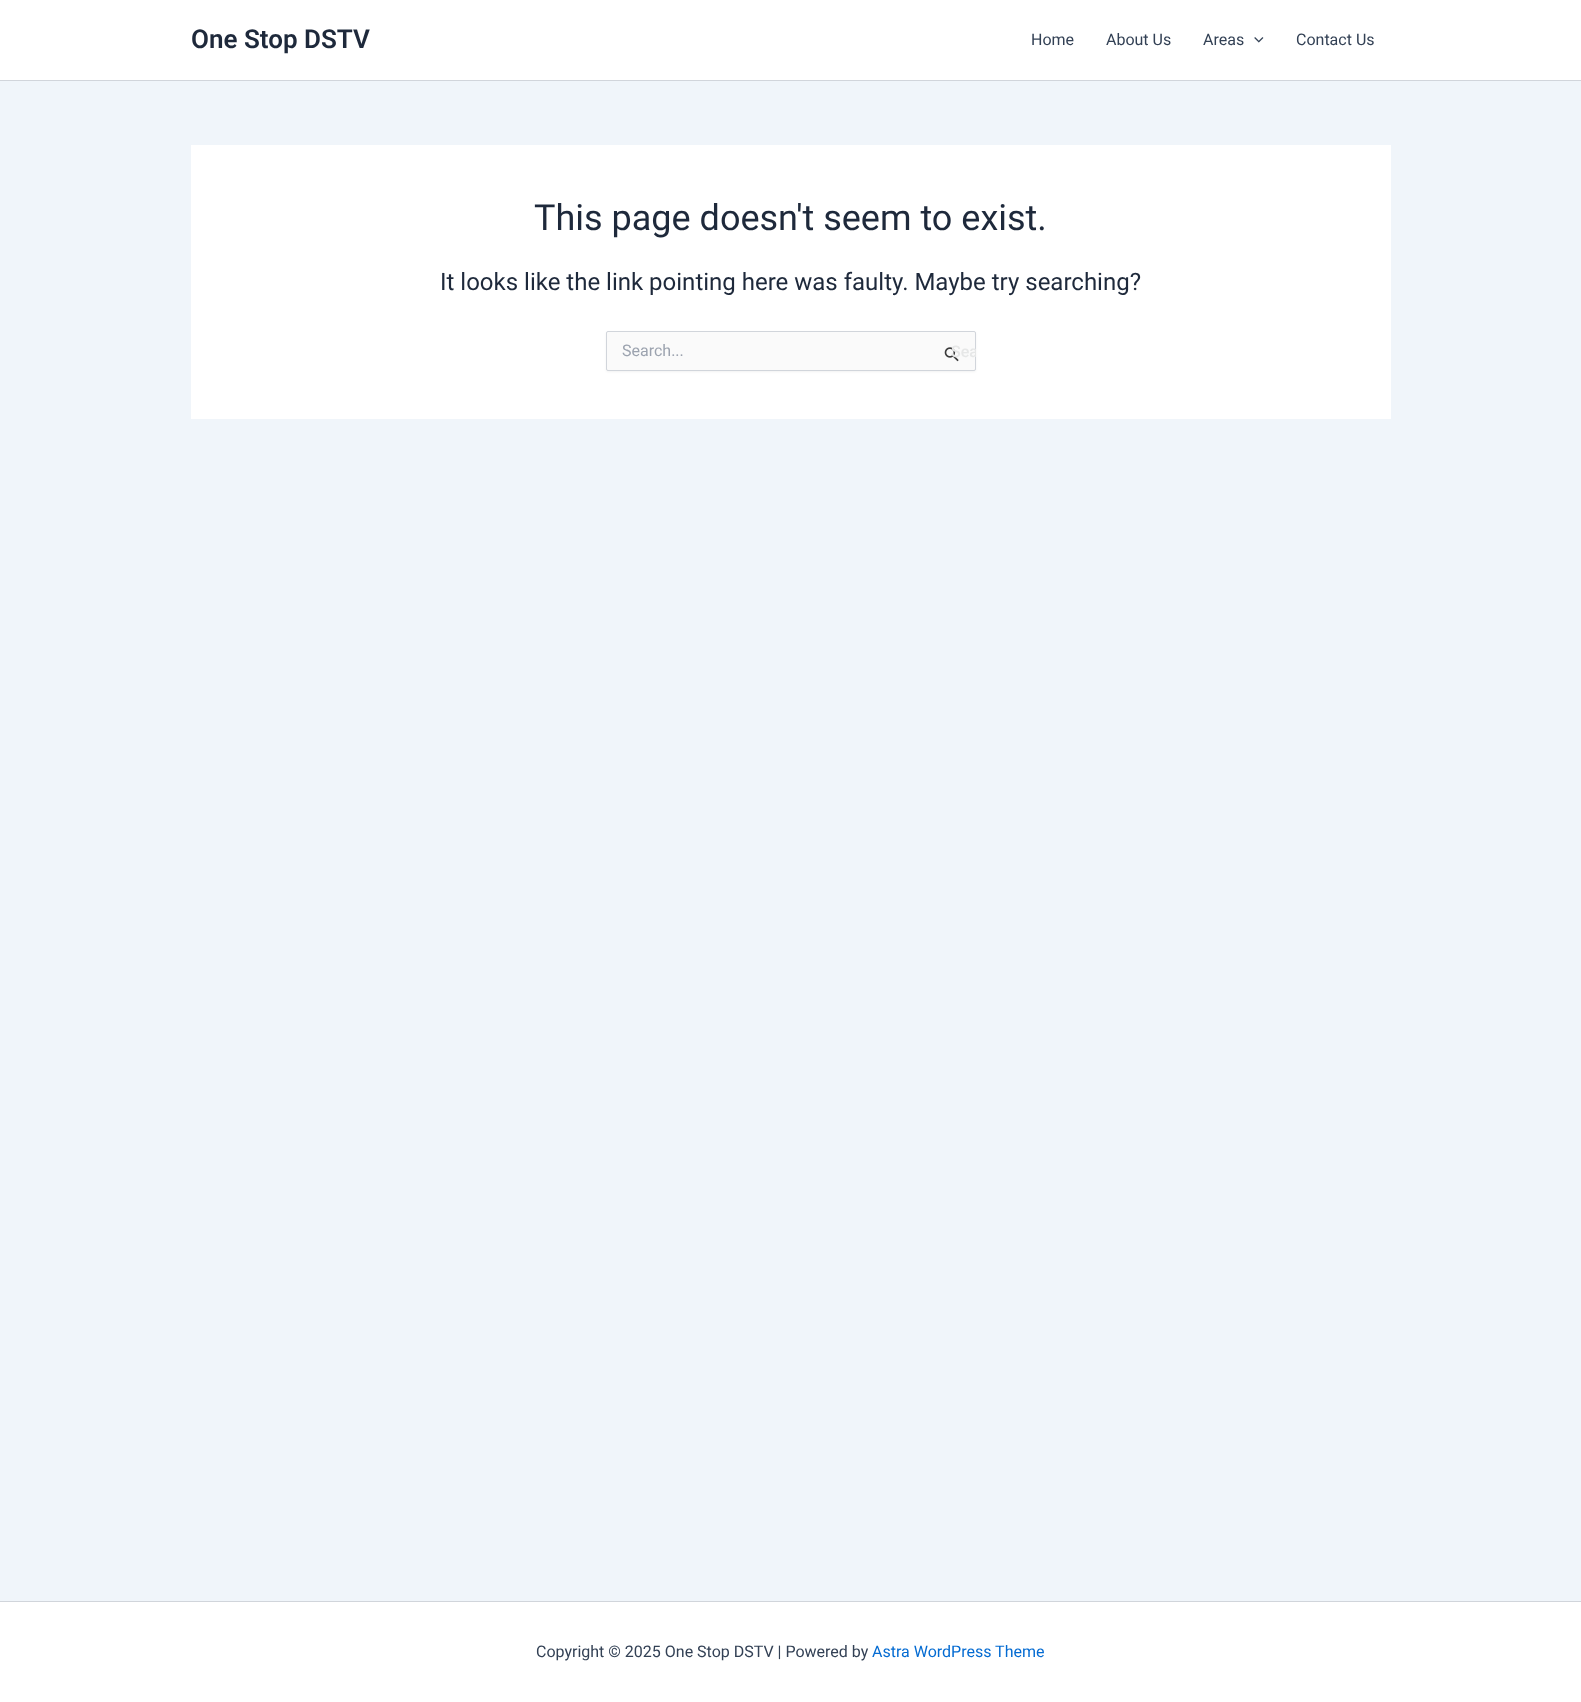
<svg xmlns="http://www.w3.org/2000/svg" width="1581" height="1702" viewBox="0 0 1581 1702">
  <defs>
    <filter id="blur1" x="-50%" y="-200%" width="200%" height="500%"><feGaussianBlur stdDeviation="1"/></filter>
    <clipPath id="clip1"><rect x="931" y="331" width="45" height="42" rx="2"/></clipPath>
  </defs>
  <rect width="100%" height="100%" fill="#f0f5fa"/>
  <rect x="0" y="0" width="1581" height="80" fill="#ffffff"/>
  <rect x="0" y="80" width="1581" height="1" fill="#d1d5db"/>
  <text x="191" y="48" font-family="Roboto" font-size="26" font-weight="600" fill="#1e293b">One Stop DSTV</text>
  <text x="1031" y="45" font-family="Roboto" font-size="16" fill="#334155">Home</text>
  <text x="1106" y="45" font-family="Roboto" font-size="16" fill="#334155">About Us</text>
  <text x="1203" y="45" font-family="Roboto" font-size="16" fill="#334155">Areas</text>
  <image x="1254" y="37" width="10" height="6" href="img1.png"/>
  <text x="1296" y="45" font-family="Roboto" font-size="16" fill="#334155">Contact Us</text>
  <rect x="191" y="145" width="1200" height="274" fill="#ffffff"/>
  <text x="534" y="230" font-family="Roboto" font-size="36" fill="#1e293b">This page doesn't seem to exist.</text>
  <text x="440" y="290" font-family="Roboto" font-size="24" fill="#1e293b">It looks like the link pointing here was faulty. Maybe try searching?</text>
  <rect x="606" y="332" width="370" height="40" rx="2" fill="#000000" fill-opacity="0.05" filter="url(#blur1)"/>
  <rect x="606.5" y="331.5" width="369" height="39" rx="1.5" fill="#fafafa" stroke="#d1d5db"/>
  <text x="622" y="356" font-family="Roboto" font-size="16" fill="#9ca3af">Search...</text>
  <image x="944" y="347" width="15" height="15" href="img2.png"/>
  <g clip-path="url(#clip1)">
    <text x="951" y="357" font-family="Roboto" font-size="16" font-weight="500" fill="#e6e7e7">Sea</text>
  </g>
  <rect x="0" y="1602" width="1581" height="100" fill="#ffffff"/>
  <rect x="0" y="1601" width="1581" height="1" fill="#d1d5db"/>
  <text x="536" y="1657" font-family="Roboto" font-size="16" fill="#334155">Copyright © 2025 One Stop DSTV | Powered by</text>
  <text x="872" y="1657" font-family="Roboto" font-size="16" fill="#046bd2">Astra WordPress Theme</text>
</svg>
